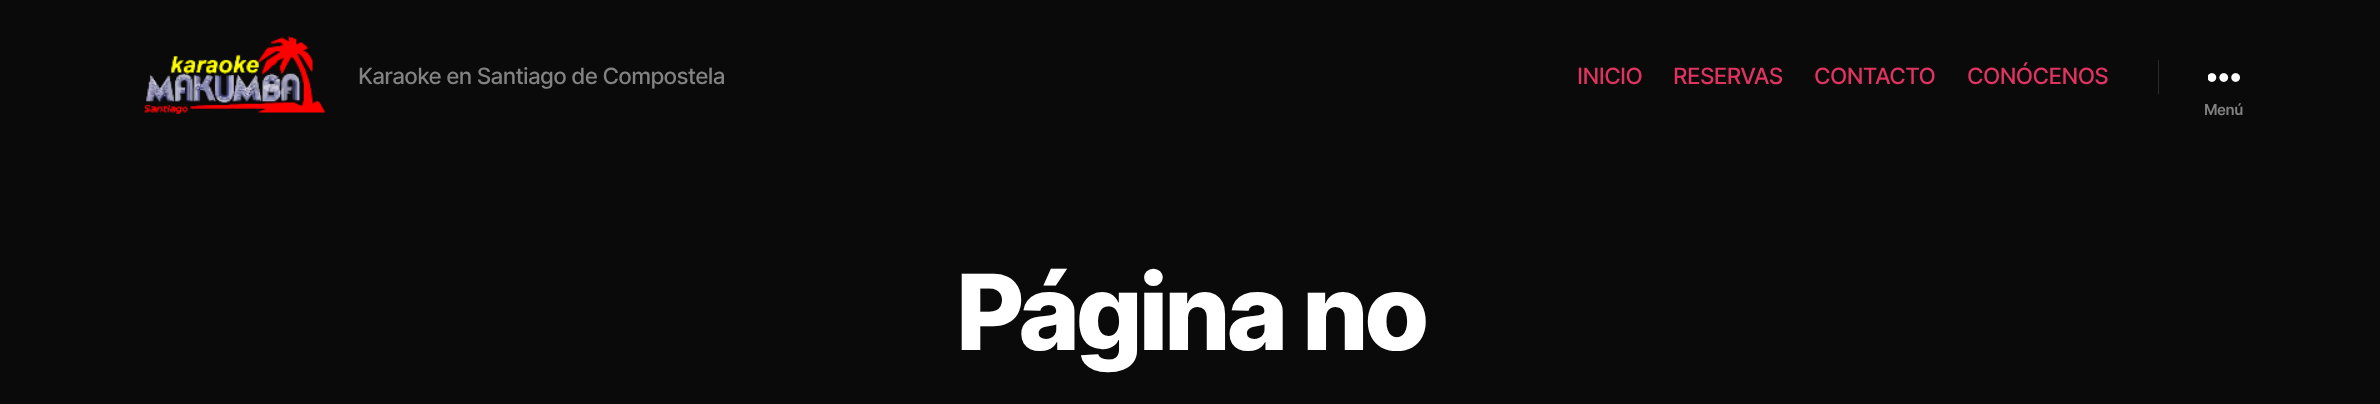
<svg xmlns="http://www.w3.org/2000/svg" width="2380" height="404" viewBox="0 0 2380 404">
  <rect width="100%" height="100%" fill="#0a0a0a"/>
  <image x="143" y="36" width="183" height="78" href="img1.png"/>
  <text x="358" y="84" font-family="Inter" font-size="22.5" font-weight="500" letter-spacing="-0.7" fill="#828282">Karaoke en Santiago de Compostela</text>
  <text x="1577" y="84" font-family="Inter" font-size="22.5" font-weight="500" letter-spacing="-0.6" fill="#df3461">INICIO</text>
  <text x="1673" y="84" font-family="Inter" font-size="22.5" font-weight="500" letter-spacing="-0.6" fill="#df3461">RESERVAS</text>
  <text x="1814" y="84" font-family="Inter" font-size="22.5" font-weight="500" letter-spacing="-0.6" fill="#df3461">CONTACTO</text>
  <text x="1967" y="84" font-family="Inter" font-size="22.5" font-weight="500" letter-spacing="-0.6" fill="#df3461">CONÓCENOS</text>
  <rect x="2158" y="60" width="1" height="34" fill="#2b2b2b"/>
  <image x="2208" y="73" width="32" height="9" href="img2.png"/>
  <text x="2204" y="115" font-family="Inter" font-size="15" font-weight="600" letter-spacing="-0.5" fill="#828282">Menú</text>
  <text x="956" y="350" font-family="Inter" font-size="105" font-weight="800" letter-spacing="-4.25" fill="#ffffff">Página no</text>
</svg>
